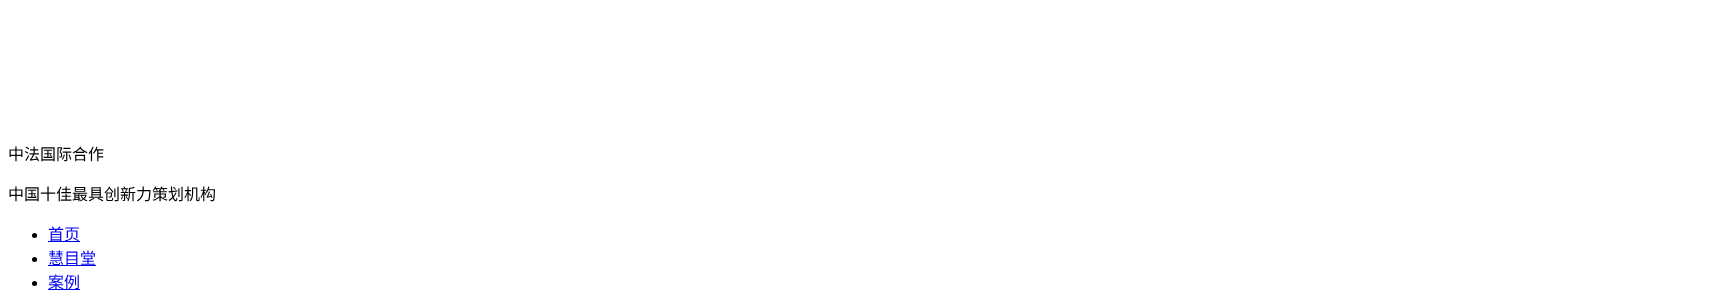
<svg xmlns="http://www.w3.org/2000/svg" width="1719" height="302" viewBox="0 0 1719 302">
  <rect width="100%" height="100%" fill="#ffffff"/>
  <text x="8" y="160" font-family="Noto Sans CJK SC" font-size="16" fill="#000000">中法国际合作</text>
  <text x="8" y="200" font-family="Noto Sans CJK SC" font-size="16" fill="#000000">中国十佳最具创新力策划机构</text>
  <circle cx="34.5" cy="235.5" r="2.5" fill="#000000"/>
  <rect x="48" y="241" width="32" height="1" fill="#0000ee"/>
  <text x="48" y="240" font-family="Noto Sans CJK SC" font-size="16" fill="#0000ee">首页</text>
  <circle cx="34.5" cy="259.5" r="2.5" fill="#000000"/>
  <rect x="48" y="265" width="48" height="1" fill="#0000ee"/>
  <text x="48" y="264" font-family="Noto Sans CJK SC" font-size="16" fill="#0000ee">慧目堂</text>
  <circle cx="34.5" cy="283.5" r="2.5" fill="#000000"/>
  <rect x="48" y="289" width="32" height="1" fill="#0000ee"/>
  <text x="48" y="288" font-family="Noto Sans CJK SC" font-size="16" fill="#0000ee">案例</text>
</svg>
